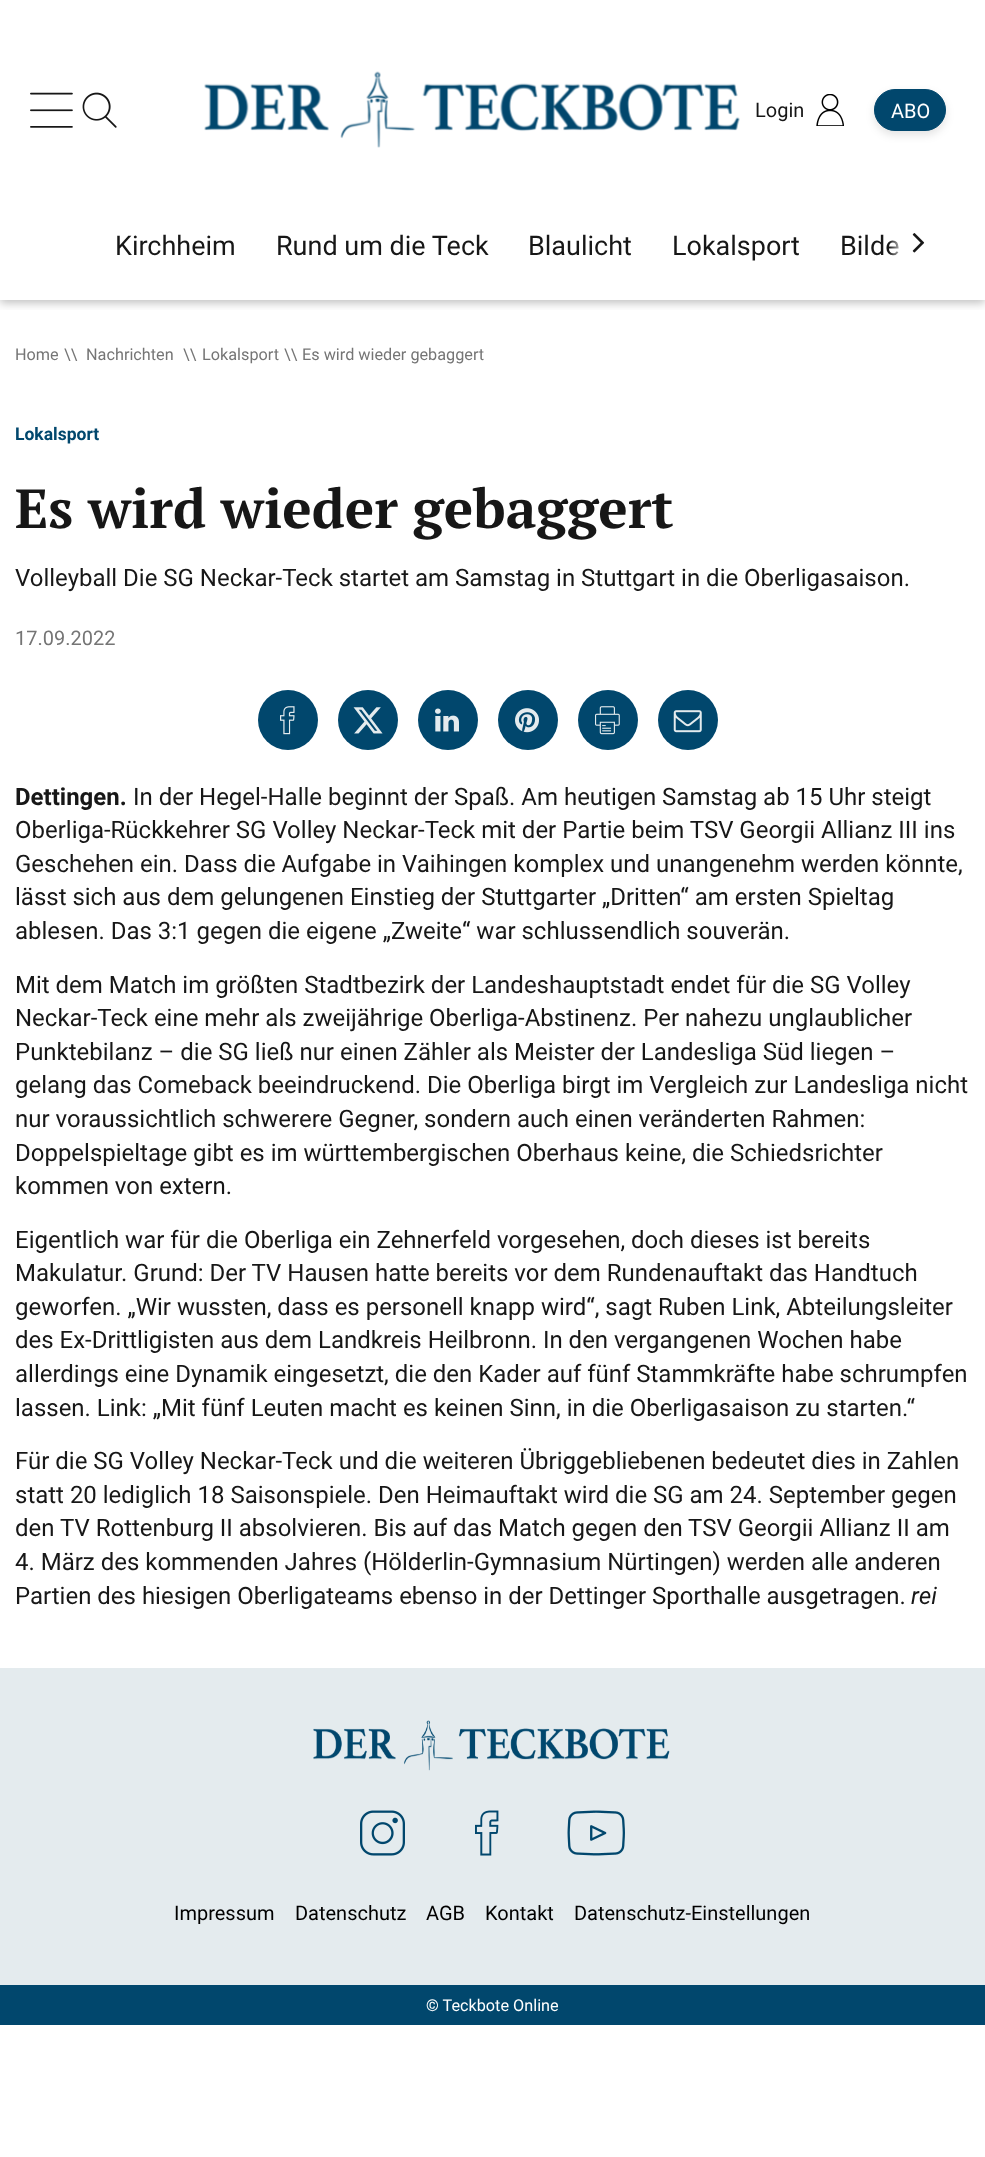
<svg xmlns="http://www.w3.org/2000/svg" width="985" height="2157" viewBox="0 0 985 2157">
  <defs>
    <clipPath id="clip1"><rect x="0" y="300" width="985" height="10"/></clipPath>
    <filter id="blur1" x="-50%" y="-200%" width="200%" height="500%"><feGaussianBlur stdDeviation="5"/></filter>
    <filter id="blur2" x="-50%" y="-200%" width="200%" height="500%"><feGaussianBlur stdDeviation="4"/></filter>
    <linearGradient id="g1" gradientUnits="userSpaceOnUse" x1="889" y1="245" x2="905" y2="245"><stop offset="0" stop-color="#ffffff" stop-opacity="0"/><stop offset="1" stop-color="#ffffff"/></linearGradient>
  </defs>
  <rect width="100%" height="100%" fill="#ffffff"/>
  <g clip-path="url(#clip1)">
    <rect x="0" y="3" width="985" height="300" fill="#000000" fill-opacity="0.25" filter="url(#blur1)"/>
  </g>
  <image x="30" y="92" width="43" height="36" href="img1.png"/>
  <image x="82" y="92" width="35" height="36" href="img2.png"/>
  <image x="204" y="71" width="536" height="77" href="img3.png"/>
  <image x="816" y="94" width="28" height="32" href="img4.png"/>
  <text x="755" y="117" font-family="Roboto" font-size="20" fill="#171717">Login</text>
  <rect x="874" y="93" width="72" height="42" rx="21" fill="#000000" fill-opacity="0.11" filter="url(#blur2)"/>
  <rect x="874.5" y="89.5" width="71" height="41" rx="20.5" fill="#01476d" stroke="#01476d"/>
  <text x="891" y="118" font-family="Roboto" font-size="20" fill="#ffffff">ABO</text>
  <text x="115" y="255" font-family="Roboto" font-size="27" fill="#171717">Kirchheim</text>
  <text x="276" y="255" font-family="Roboto" font-size="27" fill="#171717">Rund um die Teck</text>
  <text x="528" y="255" font-family="Roboto" font-size="27" fill="#171717">Blaulicht</text>
  <text x="672" y="255" font-family="Roboto" font-size="27" fill="#171717">Lokalsport</text>
  <text x="840" y="255" font-family="Roboto" font-size="27" fill="#171717">Bilde</text>
  <image x="912" y="233" width="13" height="20" href="img5.png"/>
  <rect x="889" y="240" width="10" height="16" fill="url(#g1)"/>
  <text x="15" y="360" font-family="Roboto" font-size="16.25" fill="#757575">Home</text>
  <text x="64" y="360" font-family="Roboto" font-size="16.25" fill="#757575">\\</text>
  <text x="86" y="360" font-family="Roboto" font-size="16.25" fill="#757575">Nachrichten</text>
  <text x="183" y="360" font-family="Roboto" font-size="16.25" fill="#757575">\\</text>
  <text x="202" y="360" font-family="Roboto" font-size="16.25" fill="#757575">Lokalsport</text>
  <text x="284" y="360" font-family="Roboto" font-size="16.25" fill="#757575">\\</text>
  <text x="302" y="360" font-family="Roboto" font-size="16.25" fill="#757575">Es wird wieder gebaggert</text>
  <text x="15" y="440" font-family="Roboto" font-size="17.5" font-weight="bold" fill="#01476d">Lokalsport</text>
  <text x="15" y="528" font-family="PT Serif" font-size="55" font-weight="bold" fill="#171717">Es wird wieder gebaggert</text>
  <text x="15" y="586" font-family="Roboto" font-size="24" fill="#171717">Volleyball Die SG Neckar-Teck startet am Samstag in Stuttgart in die Oberligasaison.</text>
  <text x="15" y="645" font-family="Roboto" font-size="20" fill="#757575">17.09.2022</text>
  <circle cx="288" cy="720" r="30" fill="#01476d"/>
  <image x="280" y="706" width="15" height="29" href="img6.png"/>
  <circle cx="368" cy="720" r="30" fill="#01476d"/>
  <image x="353" y="707" width="30" height="27" href="img7.png"/>
  <circle cx="448" cy="720" r="30" fill="#01476d"/>
  <image x="435" y="708" width="24" height="24" href="img8.png"/>
  <circle cx="528" cy="720" r="30" fill="#01476d"/>
  <image x="515" y="708" width="24" height="25" href="img9.png"/>
  <circle cx="608" cy="720" r="30" fill="#01476d"/>
  <image x="595" y="706" width="25" height="29" href="img10.png"/>
  <circle cx="688" cy="720" r="30" fill="#01476d"/>
  <image x="673" y="710" width="29" height="23" href="img11.png"/>
  <text x="15" y="805" font-family="Roboto" font-size="24" font-weight="bold" fill="#171717">Dettingen.</text>
  <text x="133" y="805" font-family="Roboto" font-size="24" fill="#171717">In der Hegel-Halle beginnt der Spaß. Am heutigen Samstag ab 15 Uhr steigt</text>
  <text x="15" y="838" font-family="Roboto" font-size="24" fill="#171717">Oberliga-Rückkehrer SG Volley Neckar-Teck mit der Partie beim TSV Georgii Allianz III ins</text>
  <text x="15" y="872" font-family="Roboto" font-size="24" fill="#171717">Geschehen ein. Dass die Aufgabe in Vaihingen komplex und unangenehm werden könnte,</text>
  <text x="15" y="905" font-family="Roboto" font-size="24" fill="#171717">lässt sich aus dem gelungenen Einstieg der Stuttgarter „Dritten“ am ersten Spieltag</text>
  <text x="15" y="939" font-family="Roboto" font-size="24" fill="#171717">ablesen. Das 3:1 gegen die eigene „Zweite“ war schlussendlich souverän.</text>
  <text x="15" y="993" font-family="Roboto" font-size="24" fill="#171717">Mit dem Match im größten Stadtbezirk der Landeshauptstadt endet für die SG Volley</text>
  <text x="15" y="1026" font-family="Roboto" font-size="24" fill="#171717">Neckar-Teck eine mehr als zweijährige Oberliga-Abstinenz. Per nahezu unglaublicher</text>
  <text x="15" y="1060" font-family="Roboto" font-size="24" fill="#171717">Punktebilanz – die SG ließ nur einen Zähler als Meister der Landesliga Süd liegen –</text>
  <text x="15" y="1093" font-family="Roboto" font-size="24" fill="#171717">gelang das Comeback beeindruckend. Die Oberliga birgt im Vergleich zur Landesliga nicht</text>
  <text x="15" y="1127" font-family="Roboto" font-size="24" fill="#171717">nur voraussichtlich schwerere Gegner, sondern auch einen veränderten Rahmen:</text>
  <text x="15" y="1161" font-family="Roboto" font-size="24" fill="#171717">Doppelspieltage gibt es im württembergischen Oberhaus keine, die Schiedsrichter</text>
  <text x="15" y="1194" font-family="Roboto" font-size="24" fill="#171717">kommen von extern.</text>
  <text x="15" y="1248" font-family="Roboto" font-size="24" fill="#171717">Eigentlich war für die Oberliga ein Zehnerfeld vorgesehen, doch dieses ist bereits</text>
  <text x="15" y="1281" font-family="Roboto" font-size="24" fill="#171717">Makulatur. Grund: Der TV Hausen hatte bereits vor dem Rundenauftakt das Handtuch</text>
  <text x="15" y="1315" font-family="Roboto" font-size="24" fill="#171717">geworfen. „Wir wussten, dass es personell knapp wird“, sagt Ruben Link, Abteilungsleiter</text>
  <text x="15" y="1348" font-family="Roboto" font-size="24" fill="#171717">des Ex-Drittligisten aus dem Landkreis Heilbronn. In den vergangenen Wochen habe</text>
  <text x="15" y="1382" font-family="Roboto" font-size="24" fill="#171717">allerdings eine Dynamik eingesetzt, die den Kader auf fünf Stammkräfte habe schrumpfen</text>
  <text x="15" y="1416" font-family="Roboto" font-size="24" fill="#171717">lassen. Link: „Mit fünf Leuten macht es keinen Sinn, in die Oberligasaison zu starten.“</text>
  <text x="15" y="1469" font-family="Roboto" font-size="24" fill="#171717">Für die SG Volley Neckar-Teck und die weiteren Übriggebliebenen bedeutet dies in Zahlen</text>
  <text x="15" y="1503" font-family="Roboto" font-size="24" fill="#171717">statt 20 lediglich 18 Saisonspiele. Den Heimauftakt wird die SG am 24. September gegen</text>
  <text x="15" y="1536" font-family="Roboto" font-size="24" fill="#171717">den TV Rottenburg II absolvieren. Bis auf das Match gegen den TSV Georgii Allianz II am</text>
  <text x="15" y="1570" font-family="Roboto" font-size="24" fill="#171717">4. März des kommenden Jahres (Hölderlin-Gymnasium Nürtingen) werden alle anderen</text>
  <text x="15" y="1604" font-family="Roboto" font-size="24" fill="#171717">Partien des hiesigen Oberligateams ebenso in der Dettinger Sporthalle ausgetragen.</text>
  <text x="911" y="1604" font-family="Roboto" font-size="24" font-style="italic" fill="#171717">rei</text>
  <rect x="0" y="1668" width="985" height="317" fill="#e4ebee"/>
  <image x="313" y="1720" width="357" height="51" href="img12.png"/>
  <image x="360" y="1810" width="45" height="46" href="img13.png"/>
  <image x="475" y="1810" width="24" height="46" href="img14.png"/>
  <image x="567" y="1810" width="58" height="46" href="img15.png"/>
  <text x="174" y="1920" font-family="Roboto" font-size="20" fill="#000000">Impressum</text>
  <text x="295" y="1920" font-family="Roboto" font-size="20" fill="#000000">Datenschutz</text>
  <text x="426" y="1920" font-family="Roboto" font-size="20" fill="#000000">AGB</text>
  <text x="485" y="1920" font-family="Roboto" font-size="20" fill="#000000">Kontakt</text>
  <text x="574" y="1920" font-family="Roboto" font-size="20" fill="#000000">Datenschutz-Einstellungen</text>
  <rect x="0" y="1985" width="985" height="40" fill="#01476d"/>
  <text x="426" y="2011" font-family="Roboto" font-size="16.25" fill="#ffffff">© Teckbote Online</text>
</svg>
